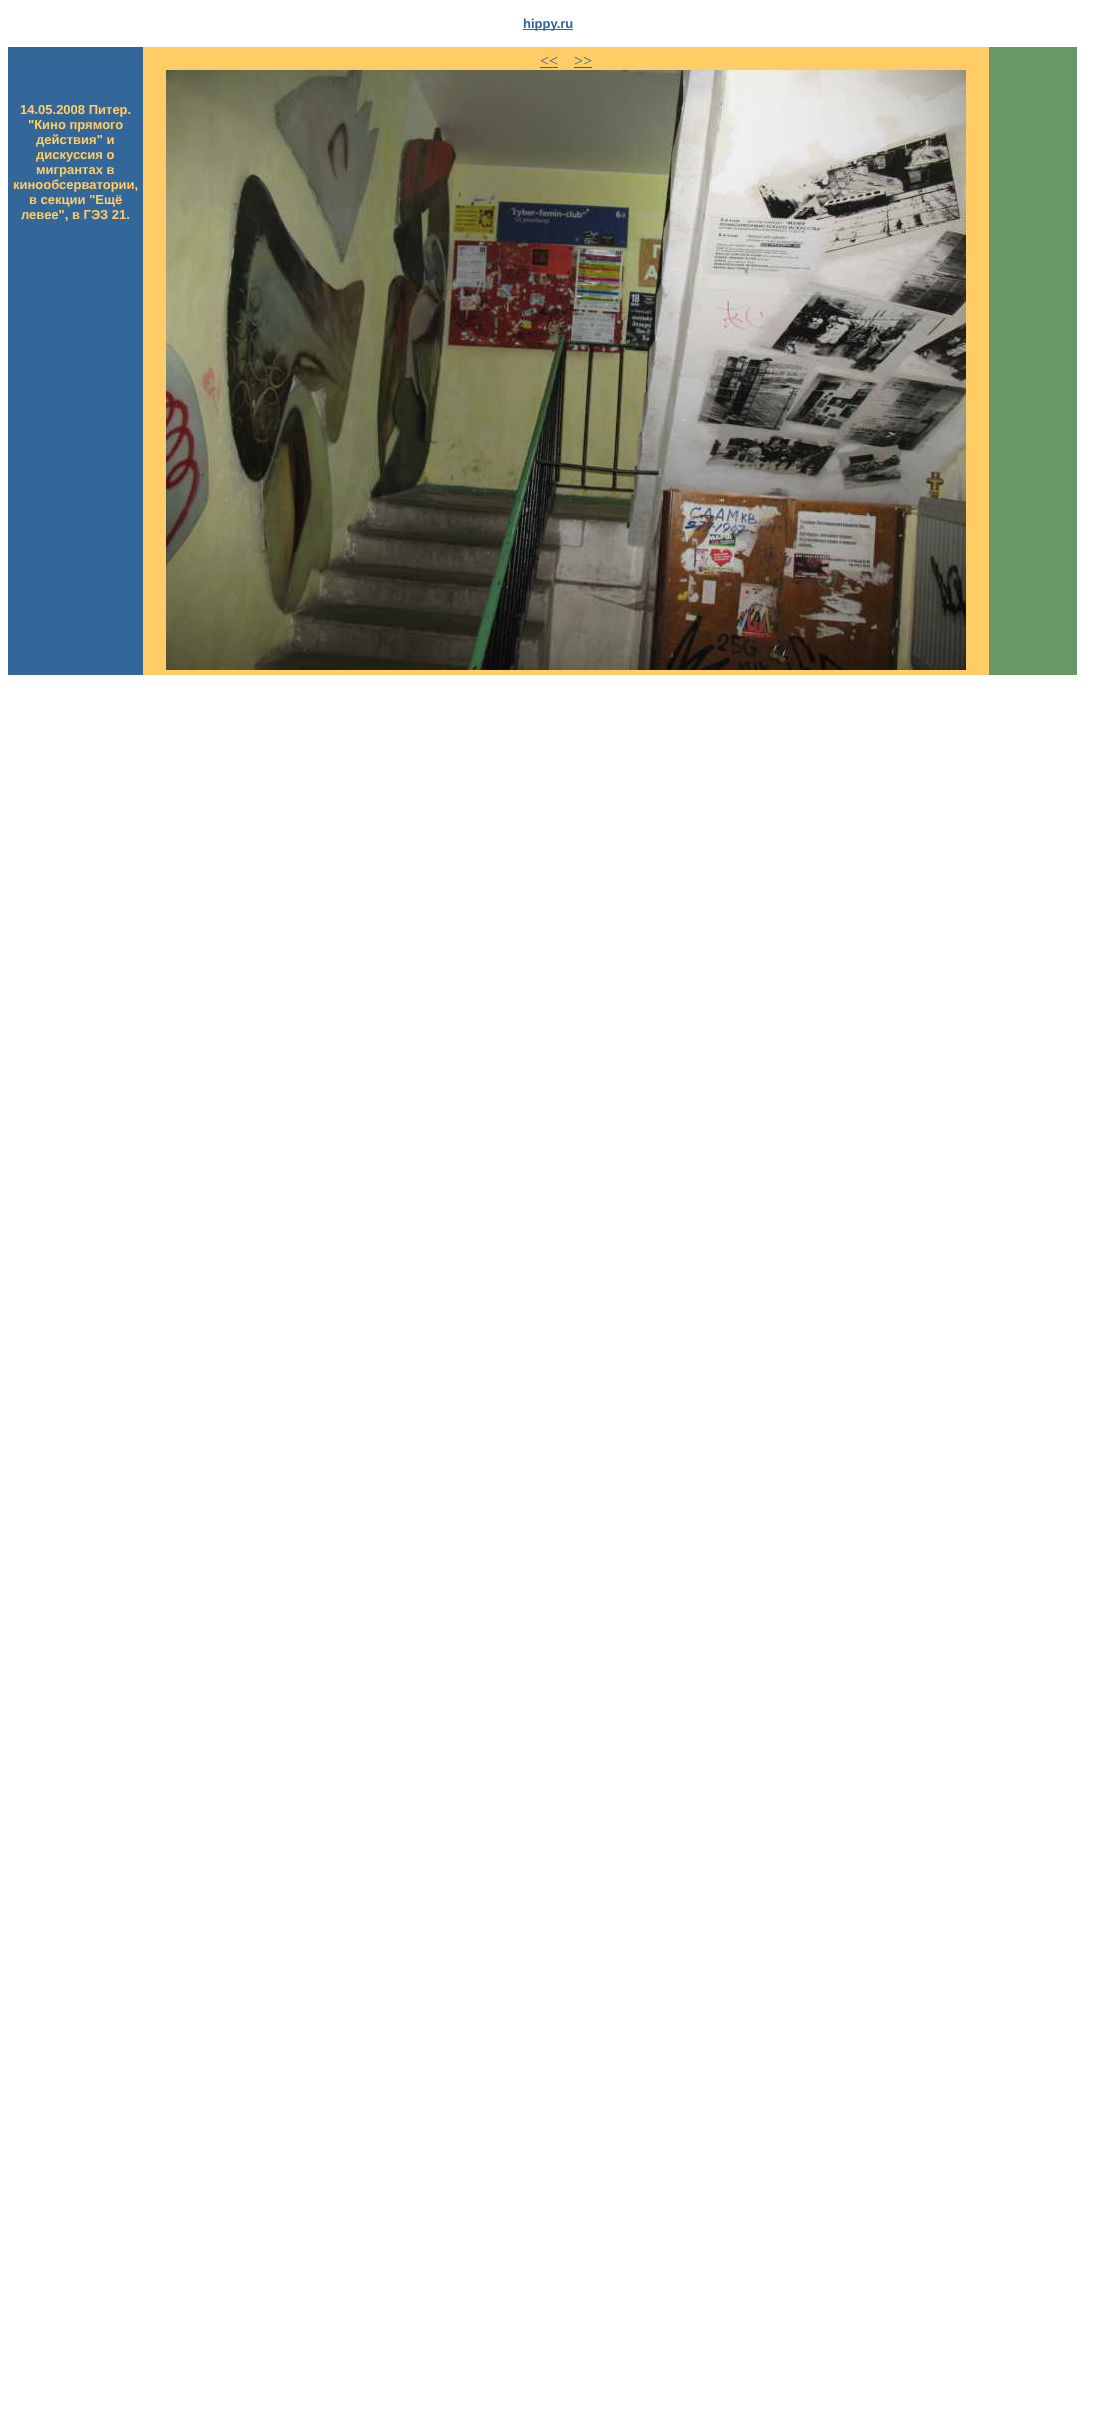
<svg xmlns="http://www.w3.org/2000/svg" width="1096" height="2410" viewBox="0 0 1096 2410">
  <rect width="100%" height="100%" fill="#ffffff"/>
  <rect x="523" y="29" width="50" height="1" fill="#336699"/>
  <text x="523" y="28" font-family="Liberation Sans" font-size="13" font-weight="bold" fill="#336699">hippy.ru</text>
  <rect x="143" y="47" width="846" height="628" fill="#ffcc66"/>
  <text x="540" y="66" font-family="Liberation Serif" font-size="16" fill="#336699">&lt;&lt;</text>
  <rect x="540" y="67" width="18" height="1" fill="#336699"/>
  <text x="574" y="66" font-family="Liberation Serif" font-size="16" fill="#336699">&gt;&gt;</text>
  <rect x="574" y="67" width="18" height="1" fill="#336699"/>
  <image x="166" y="70" width="800" height="600" href="img1.png"/>
  <rect x="989" y="47" width="88" height="628" fill="#669966"/>
  <rect x="8" y="47" width="135" height="628" fill="#336699"/>
  <text x="20" y="114" font-family="Liberation Sans" font-size="13" font-weight="bold" fill="#ffcc66">14.05.2008 Питер.</text>
  <text x="28" y="129" font-family="Liberation Sans" font-size="13" font-weight="bold" fill="#ffcc66">"Кино прямого</text>
  <text x="36" y="144" font-family="Liberation Sans" font-size="13" font-weight="bold" fill="#ffcc66">действия" и</text>
  <text x="36" y="159" font-family="Liberation Sans" font-size="13" font-weight="bold" fill="#ffcc66">дискуссия о</text>
  <text x="36" y="174" font-family="Liberation Sans" font-size="13" font-weight="bold" fill="#ffcc66">мигрантах в</text>
  <text x="13" y="189" font-family="Liberation Sans" font-size="13" font-weight="bold" fill="#ffcc66">кинообсерватории,</text>
  <text x="29" y="204" font-family="Liberation Sans" font-size="13" font-weight="bold" fill="#ffcc66">в секции "Ещё</text>
  <text x="21" y="219" font-family="Liberation Sans" font-size="13" font-weight="bold" fill="#ffcc66">левее", в ГЭЗ 21.</text>
</svg>
